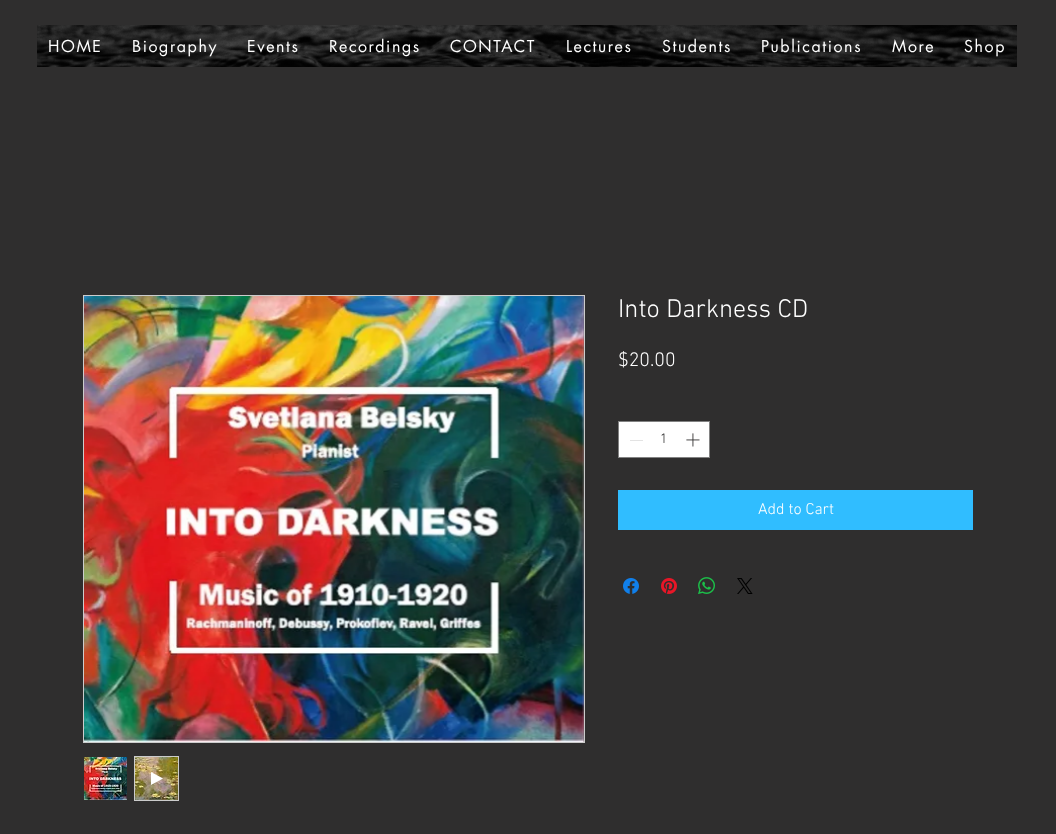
<svg xmlns="http://www.w3.org/2000/svg" width="1056" height="834" viewBox="0 0 1056 834">
  <rect width="100%" height="100%" fill="#2f2e2e"/>
  <image x="37" y="25" width="980" height="42" href="img1.png"/>
  <text x="48" y="52" font-family="futura" font-size="16" letter-spacing="1.6" fill="#ffffff">HOME</text>
  <text x="132" y="52" font-family="futura" font-size="16" letter-spacing="1.6" fill="#ffffff">Biography</text>
  <text x="247" y="52" font-family="futura" font-size="16" letter-spacing="1.6" fill="#ffffff">Events</text>
  <text x="329" y="52" font-family="futura" font-size="16" letter-spacing="1.6" fill="#ffffff">Recordings</text>
  <text x="450" y="52" font-family="futura" font-size="16" letter-spacing="1.6" fill="#ffffff">CONTACT</text>
  <text x="566" y="52" font-family="futura" font-size="16" letter-spacing="1.6" fill="#ffffff">Lectures</text>
  <text x="662" y="52" font-family="futura" font-size="16" letter-spacing="1.6" fill="#ffffff">Students</text>
  <text x="761" y="52" font-family="futura" font-size="16" letter-spacing="1.6" fill="#ffffff">Publications</text>
  <text x="892" y="52" font-family="futura" font-size="16" letter-spacing="1.6" fill="#ffffff">More</text>
  <text x="964" y="52" font-family="futura" font-size="16" letter-spacing="1.6" fill="#ffffff">Shop</text>
  <rect x="83.5" y="295.5" width="501" height="447" fill="none" stroke="#cccccc"/>
  <image x="84" y="296" width="500" height="446" href="img2.png"/>
  <image x="84" y="757" width="43" height="43" href="img3.png"/>
  <rect x="134.5" y="756.5" width="44" height="44" fill="none" stroke="#cccccc"/>
  <image x="135" y="757" width="43" height="43" href="img4.png"/>
  <path d="M151 772V785L163 778.5Z" fill="#ffffff"/>
  <text x="618" y="317" font-family="'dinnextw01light'" font-size="26" font-weight="300" fill="#ffffff">Into Darkness CD</text>
  <text x="618" y="366" font-family="'dinnextw01light'" font-size="20" font-weight="300" fill="#ffffff">$20.00</text>
  <rect x="618.5" y="421.5" width="91" height="36" fill="#ffffff" stroke="#828282"/>
  <rect x="630" y="440" width="13" height="1" fill="#e3e3e3"/>
  <text x="660" y="443" font-family="'dinnextw01light'" font-size="14" font-weight="300" fill="#2f2e2e">1</text>
  <image x="686" y="433" width="14" height="14" href="img5.png"/>
  <rect x="618" y="490" width="355" height="40" fill="#30bdff"/>
  <text x="758" y="514" font-family="'dinnextw01light'" font-size="16" font-weight="300" fill="#ffffff">Add to Cart</text>
  <image x="623" y="578" width="16" height="16" href="img6.png"/>
  <image x="661" y="578" width="16" height="16" href="img7.png"/>
  <image x="698" y="577" width="17" height="17" href="img8.png"/>
  <image x="737" y="578" width="16" height="16" href="img9.png"/>
</svg>
